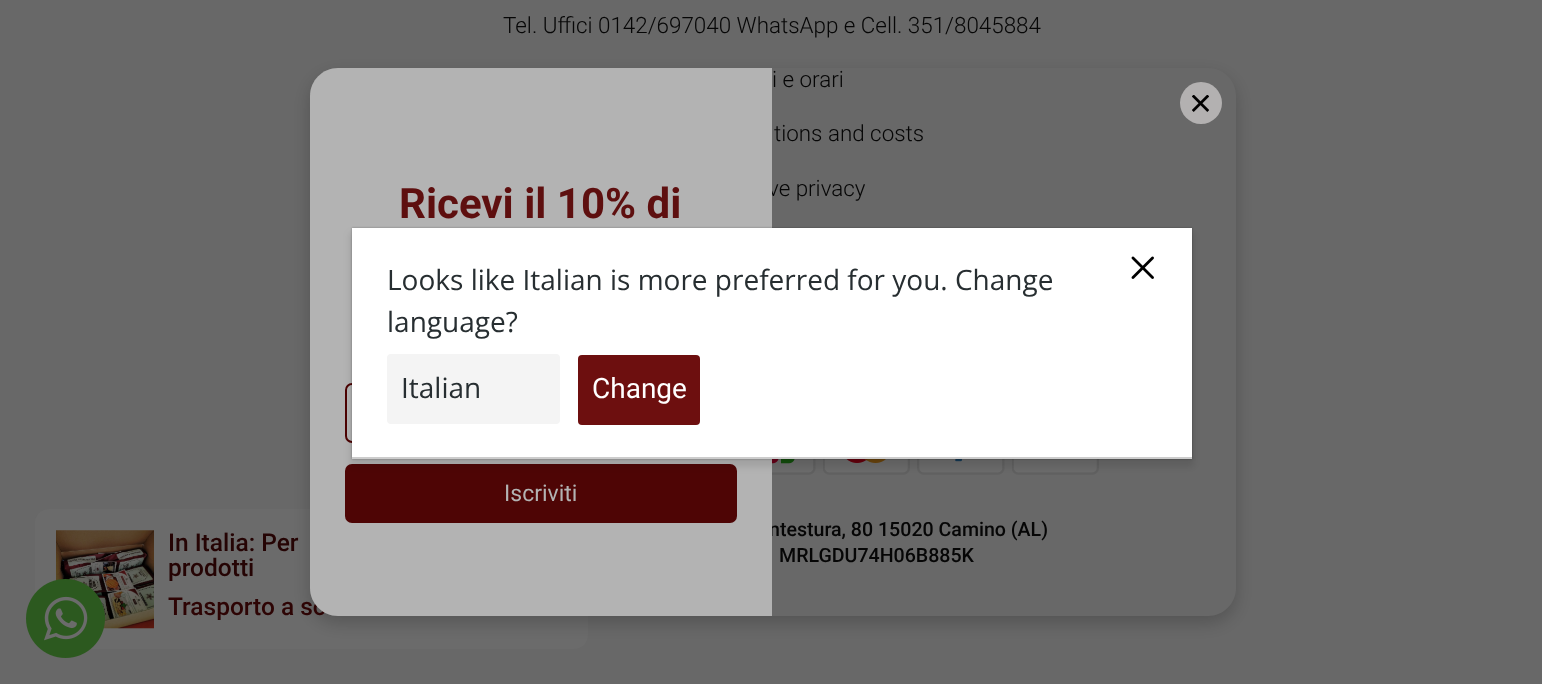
<svg xmlns="http://www.w3.org/2000/svg" width="1542" height="684" viewBox="0 0 1542 684">
  <defs>
    <clipPath id="clip1"><path d="M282 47H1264V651H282ZM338 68H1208C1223.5 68 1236 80.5 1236 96V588C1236 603.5 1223.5 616 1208 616H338C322.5 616 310 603.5 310 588V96C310 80.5 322.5 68 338 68Z" clip-rule="evenodd"/></clipPath>
    <filter id="blur1" x="-50%" y="-200%" width="200%" height="500%"><feGaussianBlur stdDeviation="9"/></filter>
    <filter id="blur2" x="-50%" y="-200%" width="200%" height="500%"><feGaussianBlur stdDeviation="3.5"/></filter>
    <filter id="blur3" x="-50%" y="-200%" width="200%" height="500%"><feGaussianBlur stdDeviation="1"/></filter>
  </defs>
  <rect width="100%" height="100%" fill="#686868"/>
  <text x="503" y="33" font-family="Roboto" font-size="22.4" font-weight="300" fill="#060606">Tel. Uffici 0142/697040 WhatsApp e Cell. 351/8045884</text>
  <text x="772" y="87" font-family="Roboto" font-size="22.4" font-weight="300" fill="#060606">i e orari</text>
  <text x="774" y="141" font-family="Roboto" font-size="22.4" font-weight="300" fill="#060606">tions and costs</text>
  <text x="768" y="196" font-family="Roboto" font-size="22.4" font-weight="300" fill="#060606">ve privacy</text>
  <image x="772" y="459" width="44" height="16" href="img1.png"/>
  <image x="823" y="459" width="87" height="16" href="img2.png"/>
  <image x="917" y="459" width="88" height="16" href="img3.png"/>
  <image x="1012" y="459" width="87" height="16" href="img4.png"/>
  <text x="769" y="536" font-family="Roboto" font-size="19.6" font-weight="500" fill="#060606">ntestura, 80 15020 Camino (AL)</text>
  <text x="779" y="562" font-family="Roboto" font-size="19.6" font-weight="500" fill="#060606">MRLGDU74H06B885K</text>
  <rect x="35" y="509" width="553" height="140" rx="14" fill="#6b6b6b"/>
  <g clip-path="url(#clip1)">
    <rect x="310" y="75" width="926" height="548" rx="28" fill="#000000" fill-opacity="0.2" filter="url(#blur1)"/>
  </g>
  <circle cx="1201" cy="103" r="21" fill="#b3b1b1"/>
  <image x="1192" y="95" width="17" height="17" href="img5.png"/>
  <text x="168" y="615" font-family="Roboto" font-size="24.5" font-weight="500" fill="#2d0404">Trasporto a so</text>
  <path d="M338 68H772V616H338C322.5 616 310 603.5 310 588V96C310 80.5 322.5 68 338 68Z" fill="#b3b3b3"/>
  <text x="399" y="218" font-family="Roboto" font-size="42" font-weight="bold" fill="#5e0f0f">Ricevi il 10% di</text>
  <rect x="346" y="384" width="390" height="58" rx="6" fill="none" stroke="#4c0101" stroke-width="2"/>
  <rect x="346" y="465" width="390" height="57" rx="6" fill="#4e0505" stroke="#4e0505" stroke-width="2"/>
  <text x="504" y="501" font-family="Roboto" font-size="23" fill="#b3b3b3">Iscriviti</text>
  <rect x="350" y="233" width="844" height="234" fill="#000000" fill-opacity="0.1" filter="url(#blur2)"/>
  <rect x="352" y="228" width="840" height="231" fill="#000000" fill-opacity="0.3" filter="url(#blur3)"/>
  <rect x="352" y="228" width="840" height="229" fill="#ffffff"/>
  <rect x="352" y="457" width="840" height="2" fill="#cccccc"/>
  <text x="387" y="290" font-family="Open Sans" font-size="28" fill="#272e31">Looks like Italian is more preferred for you. Change</text>
  <text x="387" y="332" font-family="Open Sans" font-size="28" fill="#272e31">language?</text>
  <rect x="387" y="354" width="173" height="70" rx="4" fill="#f4f4f4"/>
  <text x="401" y="398" font-family="Open Sans" font-size="28" fill="#272e31">Italian</text>
  <rect x="578" y="355" width="122" height="70" rx="4" fill="#6d0f0f"/>
  <text x="592" y="398" font-family="Roboto" font-size="28" fill="#ffffff">Change</text>
  <image x="1131" y="256" width="23" height="23" href="img6.png"/>
  <image x="56" y="530" width="98" height="99" href="img8.png"/>
  <image x="26" y="579" width="79" height="79" href="img7.png"/>
  <text x="168" y="551" font-family="Roboto" font-size="24.5" font-weight="500" fill="#250404">In Italia: Per</text>
  <text x="168" y="576" font-family="Roboto" font-size="24.5" font-weight="500" fill="#250404">prodotti</text>
</svg>
